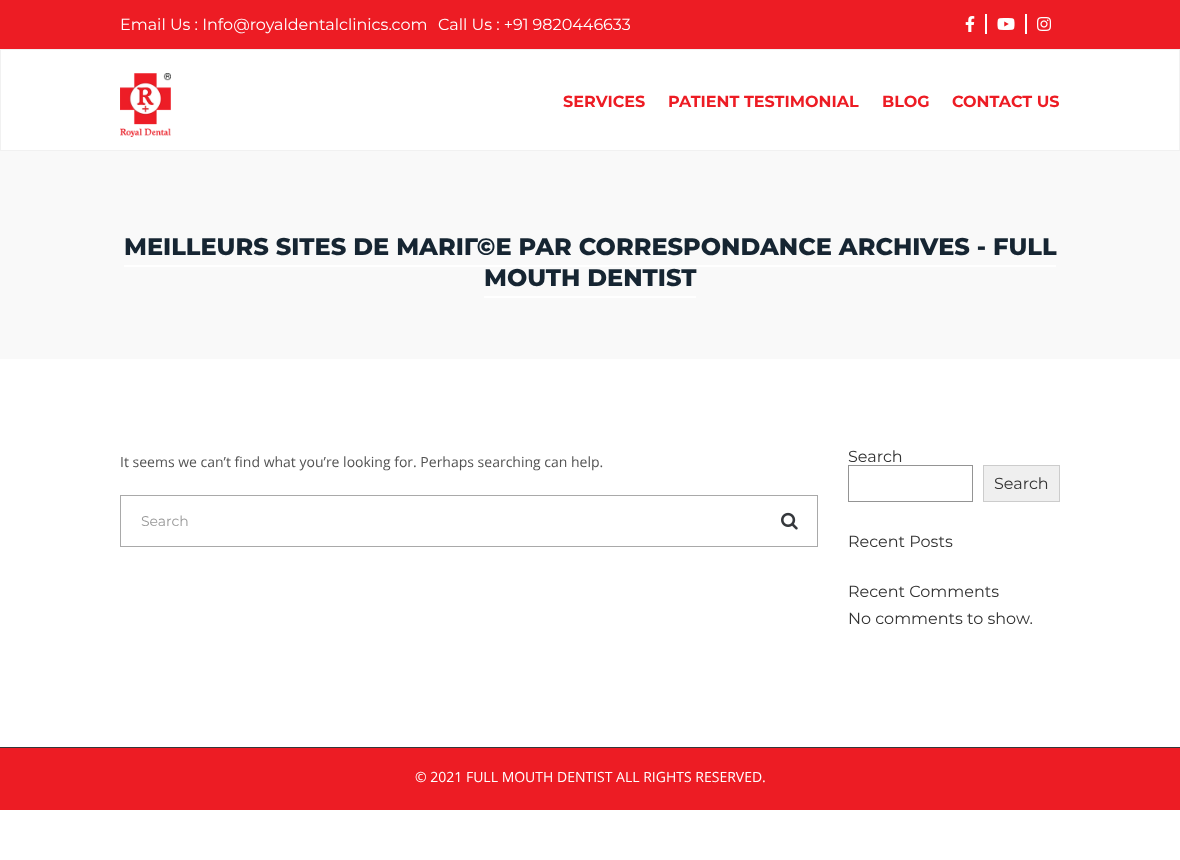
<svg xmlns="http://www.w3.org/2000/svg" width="1180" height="860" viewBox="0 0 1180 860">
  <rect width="100%" height="100%" fill="#ffffff"/>
  <rect x="0" y="0" width="1180" height="49" fill="#ed1c24"/>
  <text x="120" y="30" font-family="Montserrat" font-size="16" fill="#ffffff">Email Us : Info@royaldentalclinics.com</text>
  <text x="438" y="30" font-family="Montserrat" font-size="16" fill="#ffffff">Call Us : +91 9820446633</text>
  <image x="965" y="16" width="10" height="16" href="img1.png"/>
  <rect x="985" y="14" width="2" height="20" fill="#ffffff"/>
  <image x="997" y="18" width="18" height="12" href="img2.png"/>
  <rect x="1025" y="14" width="2" height="20" fill="#ffffff"/>
  <image x="1037" y="17" width="14" height="14" href="img3.png"/>
  <rect x="0.5" y="49.5" width="1179" height="101" fill="none" stroke="#f1f1f1"/>
  <image x="120" y="73" width="51" height="64" href="img4.png"/>
  <text x="563" y="107" font-family="Montserrat" font-size="16" font-weight="bold" fill="#ed1c24">SERVICES</text>
  <text x="668" y="107" font-family="Montserrat" font-size="16" font-weight="bold" fill="#ed1c24">PATIENT TESTIMONIAL</text>
  <text x="882" y="107" font-family="Montserrat" font-size="16" font-weight="bold" fill="#ed1c24">BLOG</text>
  <text x="952" y="107" font-family="Montserrat" font-size="16" font-weight="bold" fill="#ed1c24">CONTACT US</text>
  <rect x="0" y="151" width="1180" height="208" fill="#f9f9f9"/>
  <text x="124" y="255" font-family="Montserrat" font-size="24" font-weight="800" fill="#162532">MEILLEURS SITES DE MARIГ©E PAR CORRESPONDANCE ARCHIVES - FULL</text>
  <text x="484" y="286" font-family="Montserrat" font-size="24" font-weight="800" fill="#162532">MOUTH DENTIST</text>
  <rect x="124" y="265" width="932" height="2" fill="#ffffff"/>
  <rect x="484" y="296" width="212" height="2" fill="#ffffff"/>
  <text x="120" y="467" font-family="Open Sans" font-size="14" fill="#535353">It seems we can’t find what you’re looking for. Perhaps searching can help.</text>
  <rect x="120.5" y="495.5" width="697" height="51" fill="none" stroke="#a9a9a9"/>
  <text x="141" y="526" font-family="Montserrat" font-size="14" fill="#999999">Search</text>
  <image x="781" y="512" width="17" height="18" href="img5.png"/>
  <text x="848" y="462" font-family="Montserrat" font-size="16" fill="#333333">Search</text>
  <rect x="848.5" y="465.5" width="124" height="36" fill="none" stroke="#949494"/>
  <rect x="983.5" y="465.5" width="76" height="36" fill="#efefef" stroke="#cccccc"/>
  <text x="994" y="489" font-family="Montserrat" font-size="16" fill="#333333">Search</text>
  <text x="848" y="547" font-family="Montserrat" font-size="16" fill="#333333">Recent Posts</text>
  <text x="848" y="597" font-family="Montserrat" font-size="16" fill="#333333">Recent Comments</text>
  <text x="848" y="624" font-family="Montserrat" font-size="16" fill="#333333">No comments to show.</text>
  <rect x="0" y="747" width="1180" height="1" fill="#343639"/>
  <rect x="0" y="748" width="1180" height="62" fill="#ed1c24"/>
  <text x="415" y="782" font-family="Open Sans" font-size="14" fill="#ffffff">© 2021 FULL MOUTH DENTIST ALL RIGHTS RESERVED.</text>
</svg>
